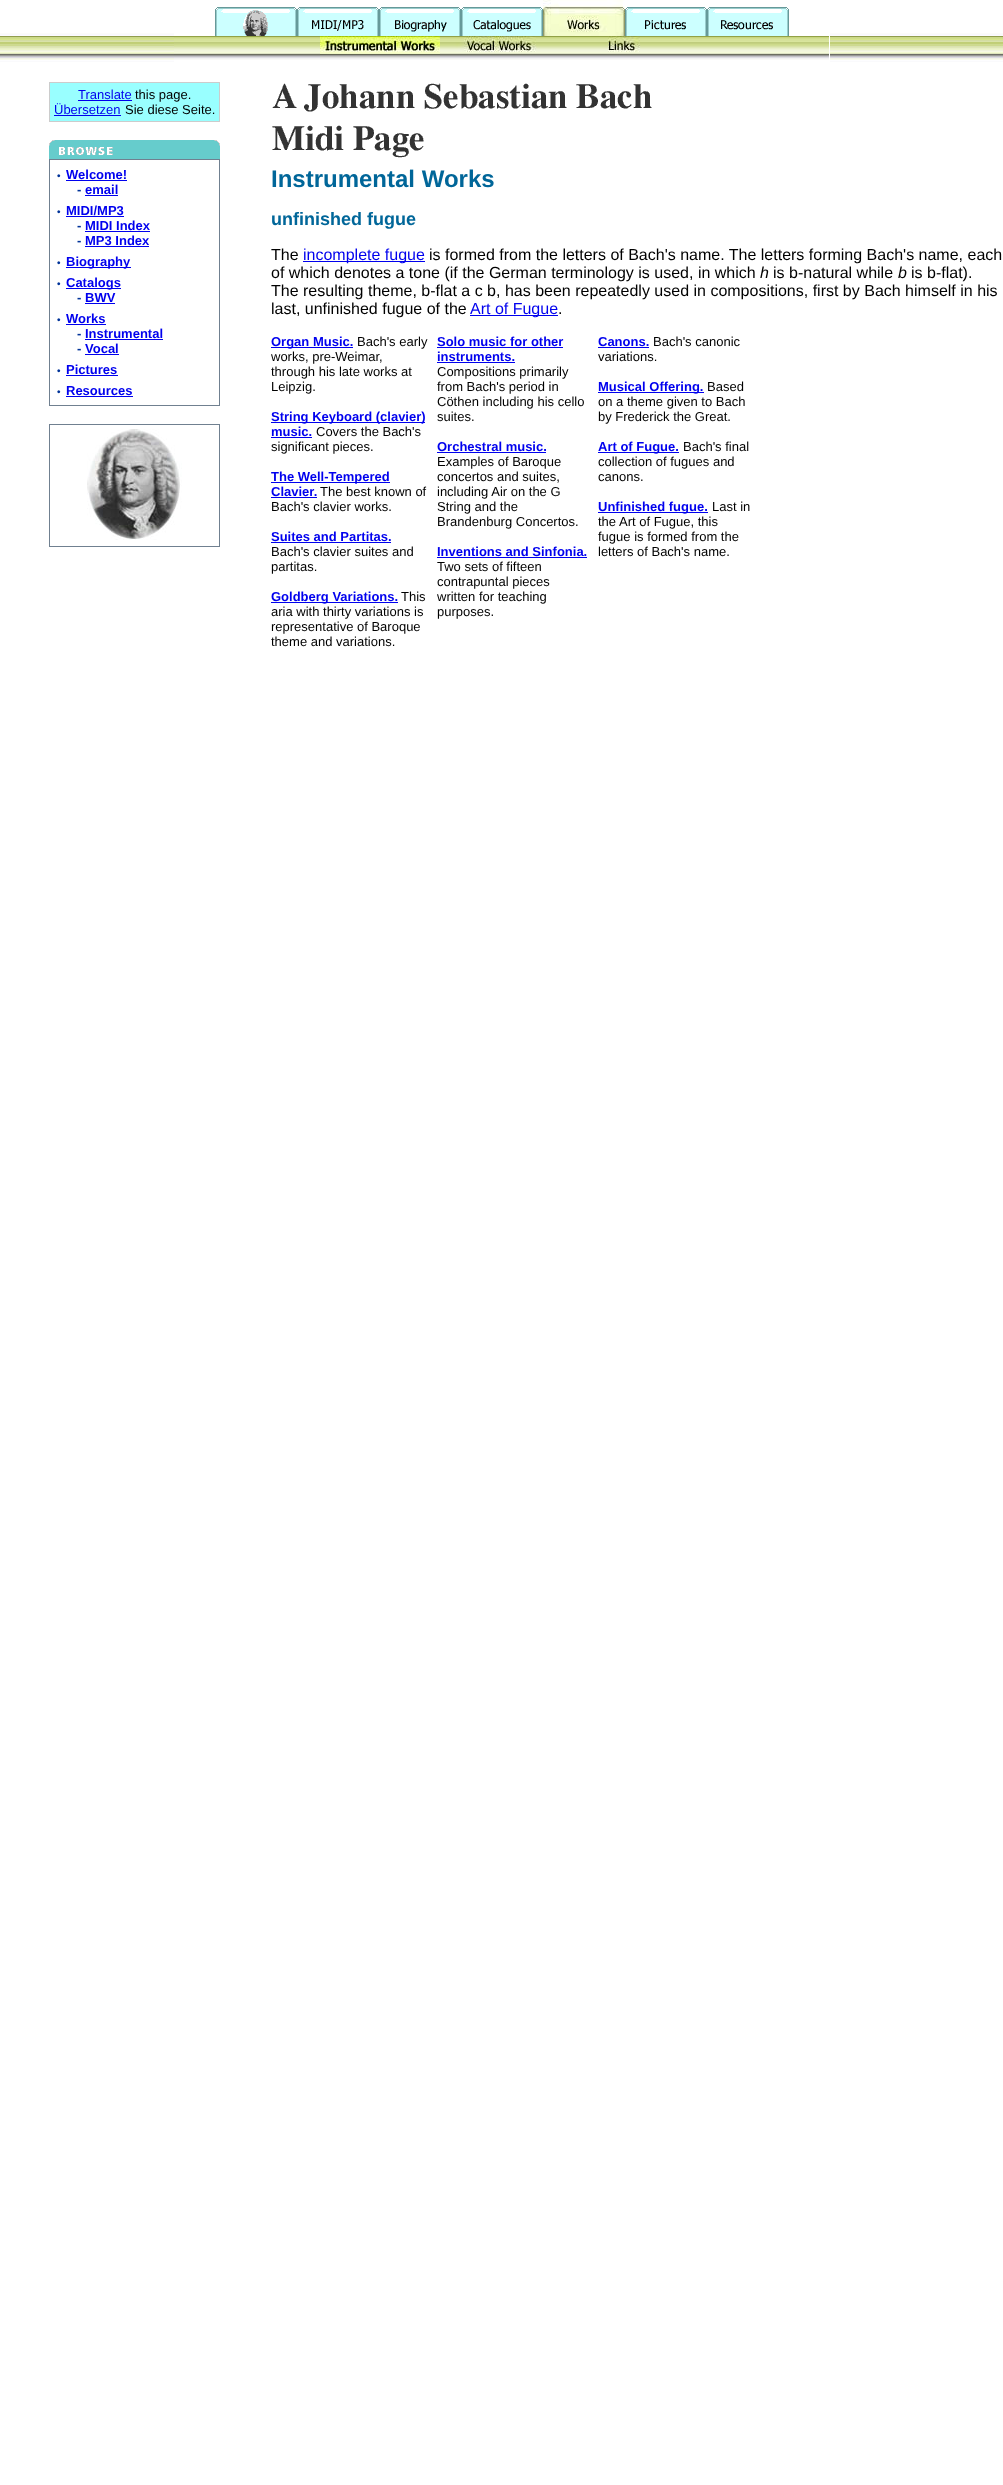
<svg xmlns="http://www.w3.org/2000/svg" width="1003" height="2485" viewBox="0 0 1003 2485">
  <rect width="100%" height="100%" fill="#ffffff"/>
  <image x="0" y="33" width="174" height="29" href="img1.png"/>
  <image x="215" y="7" width="82" height="29" href="img2.png"/>
  <image x="297" y="7" width="82" height="29" href="img3.png"/>
  <image x="379" y="7" width="82" height="29" href="img4.png"/>
  <image x="461" y="7" width="82" height="29" href="img5.png"/>
  <image x="543" y="0" width="82" height="36" href="img6.png"/>
  <image x="625" y="7" width="82" height="29" href="img7.png"/>
  <image x="707" y="7" width="82" height="29" href="img8.png"/>
  <image x="174" y="36" width="26" height="24" href="img9.png"/>
  <image x="200" y="36" width="120" height="24" href="img10.png"/>
  <image x="320" y="36" width="120" height="24" href="img11.png"/>
  <image x="440" y="36" width="120" height="24" href="img12.png"/>
  <image x="560" y="36" width="120" height="24" href="img13.png"/>
  <image x="680" y="36" width="120" height="24" href="img10.png"/>
  <image x="800" y="36" width="29" height="24" href="img14.png"/>
  <image x="830" y="33" width="173" height="29" href="img15.png"/>
  <rect x="49" y="82" width="171" height="40" fill="#cccccc"/>
  <rect x="50" y="83" width="169" height="38" fill="#99ffff"/>
  <text x="78" y="99" font-family="Liberation Sans" font-size="13" fill="#0000ee">Translate</text>
  <rect x="78" y="100" width="54" height="1" fill="#0000ee"/>
  <text x="135" y="99" font-family="Liberation Sans" font-size="13" fill="#000000">this page.</text>
  <text x="54" y="114" font-family="Liberation Sans" font-size="13" fill="#0000ee">Übersetzen</text>
  <rect x="54" y="115" width="67" height="1" fill="#0000ee"/>
  <text x="125" y="114" font-family="Liberation Sans" font-size="13" fill="#000000">Sie diese Seite.</text>
  <image x="49" y="140" width="171" height="19" href="img16.png"/>
  <rect x="49" y="159" width="171" height="247" fill="#708090"/>
  <rect x="50" y="160" width="169" height="245" fill="#ffffff"/>
  <text x="57" y="179" font-family="Liberation Sans" font-size="10" font-weight="bold" fill="#003399">•</text>
  <text x="66" y="179" font-family="Liberation Sans" font-size="13" font-weight="bold" fill="#0000ee">Welcome!</text>
  <rect x="66" y="180" width="61" height="1" fill="#0000ee"/>
  <text x="77" y="194" font-family="Liberation Sans" font-size="13" font-weight="bold" fill="#003399">-</text>
  <text x="85" y="194" font-family="Liberation Sans" font-size="13" font-weight="bold" fill="#0000ee">email</text>
  <rect x="85" y="195" width="33" height="1" fill="#0000ee"/>
  <text x="57" y="215" font-family="Liberation Sans" font-size="10" font-weight="bold" fill="#003399">•</text>
  <text x="66" y="215" font-family="Liberation Sans" font-size="13" font-weight="bold" fill="#0000ee">MIDI/MP3</text>
  <rect x="66" y="216" width="58" height="1" fill="#0000ee"/>
  <text x="77" y="230" font-family="Liberation Sans" font-size="13" font-weight="bold" fill="#003399">-</text>
  <text x="85" y="230" font-family="Liberation Sans" font-size="13" font-weight="bold" fill="#0000ee">MIDI Index</text>
  <rect x="85" y="231" width="65" height="1" fill="#0000ee"/>
  <text x="77" y="245" font-family="Liberation Sans" font-size="13" font-weight="bold" fill="#003399">-</text>
  <text x="85" y="245" font-family="Liberation Sans" font-size="13" font-weight="bold" fill="#0000ee">MP3 Index</text>
  <rect x="85" y="246" width="64" height="1" fill="#0000ee"/>
  <text x="57" y="266" font-family="Liberation Sans" font-size="10" font-weight="bold" fill="#003399">•</text>
  <rect x="66" y="267" width="65" height="1" fill="#0000ee"/>
  <text x="66" y="266" font-family="Liberation Sans" font-size="13" font-weight="bold" fill="#0000ee">Biography</text>
  <text x="57" y="287" font-family="Liberation Sans" font-size="10" font-weight="bold" fill="#003399">•</text>
  <rect x="66" y="288" width="55" height="1" fill="#0000ee"/>
  <text x="66" y="287" font-family="Liberation Sans" font-size="13" font-weight="bold" fill="#0000ee">Catalogs</text>
  <text x="77" y="302" font-family="Liberation Sans" font-size="13" font-weight="bold" fill="#003399">-</text>
  <text x="85" y="302" font-family="Liberation Sans" font-size="13" font-weight="bold" fill="#0000ee">BWV</text>
  <rect x="85" y="303" width="30" height="1" fill="#0000ee"/>
  <text x="57" y="323" font-family="Liberation Sans" font-size="10" font-weight="bold" fill="#003399">•</text>
  <text x="66" y="323" font-family="Liberation Sans" font-size="13" font-weight="bold" fill="#0000ee">Works</text>
  <rect x="66" y="324" width="40" height="1" fill="#0000ee"/>
  <text x="77" y="338" font-family="Liberation Sans" font-size="13" font-weight="bold" fill="#003399">-</text>
  <text x="85" y="338" font-family="Liberation Sans" font-size="13" font-weight="bold" fill="#0000ee">Instrumental</text>
  <rect x="85" y="339" width="78" height="1" fill="#0000ee"/>
  <text x="77" y="353" font-family="Liberation Sans" font-size="13" font-weight="bold" fill="#003399">-</text>
  <text x="85" y="353" font-family="Liberation Sans" font-size="13" font-weight="bold" fill="#0000ee">Vocal</text>
  <rect x="85" y="354" width="34" height="1" fill="#0000ee"/>
  <text x="57" y="374" font-family="Liberation Sans" font-size="10" font-weight="bold" fill="#003399">•</text>
  <text x="66" y="374" font-family="Liberation Sans" font-size="13" font-weight="bold" fill="#0000ee">Pictures</text>
  <rect x="66" y="375" width="52" height="1" fill="#0000ee"/>
  <text x="57" y="395" font-family="Liberation Sans" font-size="10" font-weight="bold" fill="#003399">•</text>
  <text x="66" y="395" font-family="Liberation Sans" font-size="13" font-weight="bold" fill="#0000ee">Resources</text>
  <rect x="66" y="396" width="67" height="1" fill="#0000ee"/>
  <rect x="49" y="424" width="171" height="123" fill="#708090"/>
  <rect x="50" y="425" width="169" height="121" fill="#ffffff"/>
  <image x="87" y="429" width="95" height="111" href="img17.png"/>
  <image x="272" y="83" width="380" height="75" href="img18.png"/>
  <text x="271" y="187" font-family="Liberation Sans" font-size="24" font-weight="bold" fill="#006699">Instrumental Works</text>
  <text x="271" y="225" font-family="Liberation Sans" font-size="18" font-weight="bold" fill="#006699">unfinished fugue</text>
  <text x="271" y="260" font-family="Liberation Sans" font-size="16" fill="#000000">The</text>
  <rect x="303" y="261" width="122" height="1" fill="#0000ee"/>
  <text x="303" y="260" font-family="Liberation Sans" font-size="16" fill="#0000ee">incomplete fugue</text>
  <text x="429" y="260" font-family="Liberation Sans" font-size="16" fill="#000000">is formed from the letters of Bach's name. The letters forming Bach's name, each</text>
  <text x="271" y="278" font-family="Liberation Sans" font-size="16" fill="#000000">of which denotes a tone (if the German terminology is used, in which</text>
  <text x="760" y="278" font-family="Liberation Sans" font-size="16" font-style="italic" fill="#000000">h</text>
  <text x="773" y="278" font-family="Liberation Sans" font-size="16" fill="#000000">is b-natural while</text>
  <text x="898" y="278" font-family="Liberation Sans" font-size="16" font-style="italic" fill="#000000">b</text>
  <text x="911" y="278" font-family="Liberation Sans" font-size="16" fill="#000000">is b-flat).</text>
  <text x="271" y="296" font-family="Liberation Sans" font-size="16" fill="#000000">The resulting theme, b-flat a c b, has been repeatedly used in compositions, first by Bach himself in his</text>
  <text x="271" y="314" font-family="Liberation Sans" font-size="16" fill="#000000">last, unfinished fugue of the</text>
  <rect x="470" y="315" width="88" height="1" fill="#0000ee"/>
  <text x="470" y="314" font-family="Liberation Sans" font-size="16" fill="#0000ee">Art of Fugue</text>
  <text x="558" y="314" font-family="Liberation Sans" font-size="16" fill="#000000">.</text>
  <rect x="271" y="347" width="82" height="1" fill="#0000ee"/>
  <text x="271" y="346" font-family="Liberation Sans" font-size="13" font-weight="bold" fill="#0000ee">Organ Music.</text>
  <text x="357" y="346" font-family="Liberation Sans" font-size="13" fill="#000000">Bach's early</text>
  <text x="271" y="361" font-family="Liberation Sans" font-size="13" fill="#000000">works, pre-Weimar,</text>
  <text x="271" y="376" font-family="Liberation Sans" font-size="13" fill="#000000">through his late works at</text>
  <text x="271" y="391" font-family="Liberation Sans" font-size="13" fill="#000000">Leipzig.</text>
  <rect x="271" y="422" width="154" height="1" fill="#0000ee"/>
  <text x="271" y="421" font-family="Liberation Sans" font-size="13" font-weight="bold" fill="#0000ee">String Keyboard (clavier)</text>
  <text x="271" y="436" font-family="Liberation Sans" font-size="13" font-weight="bold" fill="#0000ee">music.</text>
  <rect x="271" y="437" width="41" height="1" fill="#0000ee"/>
  <text x="316" y="436" font-family="Liberation Sans" font-size="13" fill="#000000">Covers the Bach's</text>
  <text x="271" y="451" font-family="Liberation Sans" font-size="13" fill="#000000">significant pieces.</text>
  <rect x="271" y="482" width="119" height="1" fill="#0000ee"/>
  <text x="271" y="481" font-family="Liberation Sans" font-size="13" font-weight="bold" fill="#0000ee">The Well-Tempered</text>
  <text x="271" y="496" font-family="Liberation Sans" font-size="13" font-weight="bold" fill="#0000ee">Clavier.</text>
  <rect x="271" y="497" width="46" height="1" fill="#0000ee"/>
  <text x="320" y="496" font-family="Liberation Sans" font-size="13" fill="#000000">The best known of</text>
  <text x="271" y="511" font-family="Liberation Sans" font-size="13" fill="#000000">Bach's clavier works.</text>
  <text x="271" y="541" font-family="Liberation Sans" font-size="13" font-weight="bold" fill="#0000ee">Suites and Partitas.</text>
  <rect x="271" y="542" width="120" height="1" fill="#0000ee"/>
  <text x="271" y="556" font-family="Liberation Sans" font-size="13" fill="#000000">Bach's clavier suites and</text>
  <text x="271" y="571" font-family="Liberation Sans" font-size="13" fill="#000000">partitas.</text>
  <rect x="271" y="602" width="127" height="1" fill="#0000ee"/>
  <text x="271" y="601" font-family="Liberation Sans" font-size="13" font-weight="bold" fill="#0000ee">Goldberg Variations.</text>
  <text x="401" y="601" font-family="Liberation Sans" font-size="13" fill="#000000">This</text>
  <text x="271" y="616" font-family="Liberation Sans" font-size="13" fill="#000000">aria with thirty variations is</text>
  <text x="271" y="631" font-family="Liberation Sans" font-size="13" fill="#000000">representative of Baroque</text>
  <text x="271" y="646" font-family="Liberation Sans" font-size="13" fill="#000000">theme and variations.</text>
  <text x="437" y="346" font-family="Liberation Sans" font-size="13" font-weight="bold" fill="#0000ee">Solo music for other</text>
  <rect x="437" y="347" width="126" height="1" fill="#0000ee"/>
  <text x="437" y="361" font-family="Liberation Sans" font-size="13" font-weight="bold" fill="#0000ee">instruments.</text>
  <rect x="437" y="362" width="78" height="1" fill="#0000ee"/>
  <text x="437" y="376" font-family="Liberation Sans" font-size="13" fill="#000000">Compositions primarily</text>
  <text x="437" y="391" font-family="Liberation Sans" font-size="13" fill="#000000">from Bach's period in</text>
  <text x="437" y="406" font-family="Liberation Sans" font-size="13" fill="#000000">Cöthen including his cello</text>
  <text x="437" y="421" font-family="Liberation Sans" font-size="13" fill="#000000">suites.</text>
  <text x="437" y="451" font-family="Liberation Sans" font-size="13" font-weight="bold" fill="#0000ee">Orchestral music.</text>
  <rect x="437" y="452" width="109" height="1" fill="#0000ee"/>
  <text x="437" y="466" font-family="Liberation Sans" font-size="13" fill="#000000">Examples of Baroque</text>
  <text x="437" y="481" font-family="Liberation Sans" font-size="13" fill="#000000">concertos and suites,</text>
  <text x="437" y="496" font-family="Liberation Sans" font-size="13" fill="#000000">including Air on the G</text>
  <text x="437" y="511" font-family="Liberation Sans" font-size="13" fill="#000000">String and the</text>
  <text x="437" y="526" font-family="Liberation Sans" font-size="13" fill="#000000">Brandenburg Concertos.</text>
  <text x="437" y="556" font-family="Liberation Sans" font-size="13" font-weight="bold" fill="#0000ee">Inventions and Sinfonia.</text>
  <rect x="437" y="557" width="150" height="1" fill="#0000ee"/>
  <text x="437" y="571" font-family="Liberation Sans" font-size="13" fill="#000000">Two sets of fifteen</text>
  <text x="437" y="586" font-family="Liberation Sans" font-size="13" fill="#000000">contrapuntal pieces</text>
  <text x="437" y="601" font-family="Liberation Sans" font-size="13" fill="#000000">written for teaching</text>
  <text x="437" y="616" font-family="Liberation Sans" font-size="13" fill="#000000">purposes.</text>
  <text x="598" y="346" font-family="Liberation Sans" font-size="13" font-weight="bold" fill="#0000ee">Canons.</text>
  <rect x="598" y="347" width="51" height="1" fill="#0000ee"/>
  <text x="653" y="346" font-family="Liberation Sans" font-size="13" fill="#000000">Bach's canonic</text>
  <text x="598" y="361" font-family="Liberation Sans" font-size="13" fill="#000000">variations.</text>
  <rect x="598" y="392" width="106" height="1" fill="#0000ee"/>
  <text x="598" y="391" font-family="Liberation Sans" font-size="13" font-weight="bold" fill="#0000ee">Musical Offering.</text>
  <text x="707" y="391" font-family="Liberation Sans" font-size="13" fill="#000000">Based</text>
  <text x="598" y="406" font-family="Liberation Sans" font-size="13" fill="#000000">on a theme given to Bach</text>
  <text x="598" y="421" font-family="Liberation Sans" font-size="13" fill="#000000">by Frederick the Great.</text>
  <rect x="598" y="452" width="81" height="1" fill="#0000ee"/>
  <text x="598" y="451" font-family="Liberation Sans" font-size="13" font-weight="bold" fill="#0000ee">Art of Fugue.</text>
  <text x="683" y="451" font-family="Liberation Sans" font-size="13" fill="#000000">Bach's final</text>
  <text x="598" y="466" font-family="Liberation Sans" font-size="13" fill="#000000">collection of fugues and</text>
  <text x="598" y="481" font-family="Liberation Sans" font-size="13" fill="#000000">canons.</text>
  <rect x="598" y="512" width="110" height="1" fill="#0000ee"/>
  <text x="598" y="511" font-family="Liberation Sans" font-size="13" font-weight="bold" fill="#0000ee">Unfinished fugue.</text>
  <text x="712" y="511" font-family="Liberation Sans" font-size="13" fill="#000000">Last in</text>
  <text x="598" y="526" font-family="Liberation Sans" font-size="13" fill="#000000">the Art of Fugue, this</text>
  <text x="598" y="541" font-family="Liberation Sans" font-size="13" fill="#000000">fugue is formed from the</text>
  <text x="598" y="556" font-family="Liberation Sans" font-size="13" fill="#000000">letters of Bach's name.</text>
</svg>
